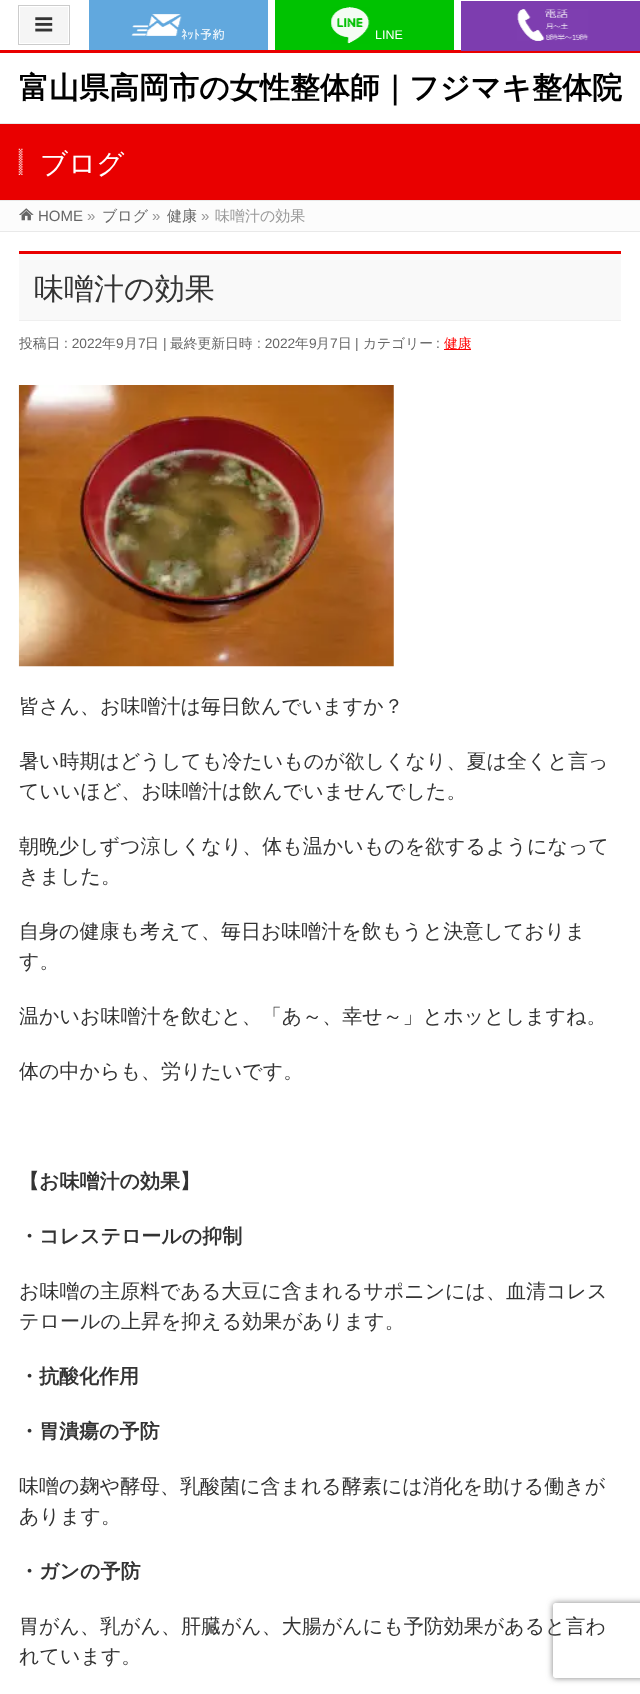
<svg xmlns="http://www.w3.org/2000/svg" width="640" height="1694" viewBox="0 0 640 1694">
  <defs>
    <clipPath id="clip1"><path d="M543 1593H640V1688H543ZM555.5 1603H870.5C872 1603 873 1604 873 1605.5V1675.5C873 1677 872 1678 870.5 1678H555.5C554 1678 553 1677 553 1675.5V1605.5C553 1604 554 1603 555.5 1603Z" clip-rule="evenodd"/></clipPath>
    <filter id="blur1" x="-50%" y="-200%" width="200%" height="500%"><feGaussianBlur stdDeviation="3"/></filter>
  </defs>
  <rect width="100%" height="100%" fill="#ffffff"/>
  <rect x="89" y="0" width="179" height="50" fill="#61a8de"/>
  <image x="131" y="14" width="51" height="22" href="img1.png"/>
  <text x="181" y="39" font-family="IPAPGothic" font-size="12.5" fill="#ffffff">ﾈｯﾄ予約</text>
  <rect x="275" y="0" width="179" height="50" fill="#00c201"/>
  <image x="331" y="7" width="39" height="37" href="img2.png"/>
  <text x="375" y="39" font-family="Liberation Sans" font-size="12.5" fill="#ffffff">LINE</text>
  <rect x="0" y="50" width="640" height="3" fill="#e90000"/>
  <rect x="461" y="1" width="179" height="50" fill="#7d3daf"/>
  <image x="517" y="9" width="72" height="32" href="img3.png"/>
  <rect x="20" y="7" width="48" height="36" fill="#f5f5f5"/>
  <rect x="18.5" y="5.5" width="51" height="39" fill="none" stroke="#cccccc"/>
  <image x="35" y="17" width="18" height="15" href="img4.png"/>
  <text x="19" y="98" font-family="WenQuanYi Zen Hei" font-size="30" font-weight="bold" fill="#000000">富山県高岡市の女性整体師｜フジマキ整体院</text>
  <rect x="0" y="124" width="640" height="76" fill="#e90000"/>
  <rect x="0" y="123" width="640" height="1" fill="#e9e9e9"/>
  <rect x="0" y="200" width="640" height="1" fill="#e9e9e9"/>
  <image x="18" y="148" width="5" height="27" href="img5.png"/>
  <text x="40" y="173" font-family="WenQuanYi Zen Hei" font-size="27.5" font-weight="500" fill="#ffffff">ブログ</text>
  <rect x="0" y="201" width="640" height="30" fill="#fcfcfc"/>
  <image x="19" y="208" width="15" height="13" href="img6.png"/>
  <text x="38" y="221" font-family="Liberation Sans" font-size="15" fill="#666666">HOME</text>
  <text x="87" y="221" font-family="Liberation Sans" font-size="15" fill="#999999">»</text>
  <text x="102" y="221" font-family="WenQuanYi Zen Hei" font-size="15" font-weight="500" fill="#666666">ブログ</text>
  <text x="152" y="221" font-family="Liberation Sans" font-size="15" fill="#999999">»</text>
  <text x="167" y="221" font-family="WenQuanYi Zen Hei" font-size="15" font-weight="500" fill="#666666">健康</text>
  <text x="201" y="221" font-family="Liberation Sans" font-size="15" fill="#999999">»</text>
  <text x="215" y="221" font-family="WenQuanYi Zen Hei" font-size="15" font-weight="500" fill="#999999">味噌汁の効果</text>
  <rect x="0" y="231" width="640" height="1" fill="#e9e9e9"/>
  <rect x="19" y="254" width="602" height="66" fill="#f9f9f9"/>
  <rect x="19" y="251" width="602" height="3" fill="#e90000"/>
  <rect x="19" y="320" width="602" height="1" fill="#efefef"/>
  <text x="34" y="299" font-family="WenQuanYi Zen Hei" font-size="30" font-weight="500" fill="#333333">味噌汁の効果</text>
  <text x="19" y="348" font-family="WenQuanYi Zen Hei" font-size="13.75" font-weight="500" fill="#666666">投稿日</text>
  <text x="64" y="348" font-family="Liberation Sans" font-size="13.75" fill="#666666">: 2022</text>
  <text x="102" y="348" font-family="WenQuanYi Zen Hei" font-size="13.75" font-weight="500" fill="#666666">年</text>
  <text x="116" y="348" font-family="Liberation Sans" font-size="13.75" fill="#666666">9</text>
  <text x="124" y="348" font-family="WenQuanYi Zen Hei" font-size="13.75" font-weight="500" fill="#666666">月</text>
  <text x="138" y="348" font-family="Liberation Sans" font-size="13.75" fill="#666666">7</text>
  <text x="145" y="348" font-family="WenQuanYi Zen Hei" font-size="13.75" font-weight="500" fill="#666666">日</text>
  <text x="163" y="348" font-family="Liberation Sans" font-size="13.75" fill="#666666">|</text>
  <text x="170" y="348" font-family="WenQuanYi Zen Hei" font-size="13.75" font-weight="500" fill="#666666">最終更新日時</text>
  <text x="257" y="348" font-family="Liberation Sans" font-size="13.75" fill="#666666">: 2022</text>
  <text x="295" y="348" font-family="WenQuanYi Zen Hei" font-size="13.75" font-weight="500" fill="#666666">年</text>
  <text x="309" y="348" font-family="Liberation Sans" font-size="13.75" fill="#666666">9</text>
  <text x="316" y="348" font-family="WenQuanYi Zen Hei" font-size="13.75" font-weight="500" fill="#666666">月</text>
  <text x="330" y="348" font-family="Liberation Sans" font-size="13.75" fill="#666666">7</text>
  <text x="338" y="348" font-family="WenQuanYi Zen Hei" font-size="13.75" font-weight="500" fill="#666666">日</text>
  <text x="355" y="348" font-family="Liberation Sans" font-size="13.75" fill="#666666">|</text>
  <text x="363" y="348" font-family="WenQuanYi Zen Hei" font-size="13.75" font-weight="500" fill="#666666">カテゴリー</text>
  <text x="436" y="348" font-family="Liberation Sans" font-size="13.75" fill="#666666">:</text>
  <rect x="444" y="349" width="27" height="1" fill="#ff0000"/>
  <text x="444" y="348" font-family="WenQuanYi Zen Hei" font-size="13.75" font-weight="500" fill="#ff0000">健康</text>
  <image x="18" y="385" width="376" height="282" href="img7.png"/>
  <text x="19" y="713" font-family="WenQuanYi Zen Hei" font-size="20" font-weight="500" fill="#333333">皆さん、お味噌汁は毎日飲んでいますか？</text>
  <text x="19" y="768" font-family="WenQuanYi Zen Hei" font-size="20" font-weight="500" fill="#333333">暑い時期はどうしても冷たいものが欲しくなり、夏は全くと言っ</text>
  <text x="19" y="798" font-family="WenQuanYi Zen Hei" font-size="20" font-weight="500" fill="#333333">ていいほど、お味噌汁は飲んでいませんでした。</text>
  <text x="19" y="853" font-family="WenQuanYi Zen Hei" font-size="20" font-weight="500" fill="#333333">朝晩少しずつ涼しくなり、体も温かいものを欲するようになって</text>
  <text x="19" y="883" font-family="WenQuanYi Zen Hei" font-size="20" font-weight="500" fill="#333333">きました。</text>
  <text x="19" y="938" font-family="WenQuanYi Zen Hei" font-size="20" font-weight="500" fill="#333333">自身の健康も考えて、毎日お味噌汁を飲もうと決意しておりま</text>
  <text x="19" y="968" font-family="WenQuanYi Zen Hei" font-size="20" font-weight="500" fill="#333333">す。</text>
  <text x="19" y="1023" font-family="WenQuanYi Zen Hei" font-size="20" font-weight="500" fill="#333333">温かいお味噌汁を飲むと、「あ～、幸せ～」とホッとしますね。</text>
  <text x="19" y="1078" font-family="WenQuanYi Zen Hei" font-size="20" font-weight="500" fill="#333333">体の中からも、労りたいです。</text>
  <text x="19" y="1188" font-family="WenQuanYi Zen Hei" font-size="20" font-weight="bold" fill="#333333">【お味噌汁の効果】</text>
  <text x="19" y="1243" font-family="WenQuanYi Zen Hei" font-size="20" font-weight="bold" fill="#333333">・コレステロールの抑制</text>
  <text x="19" y="1298" font-family="WenQuanYi Zen Hei" font-size="20" font-weight="500" fill="#333333">お味噌の主原料である大豆に含まれるサポニンには、血清コレス</text>
  <text x="19" y="1328" font-family="WenQuanYi Zen Hei" font-size="20" font-weight="500" fill="#333333">テロールの上昇を抑える効果があります。</text>
  <text x="19" y="1383" font-family="WenQuanYi Zen Hei" font-size="20" font-weight="bold" fill="#333333">・抗酸化作用</text>
  <text x="19" y="1438" font-family="WenQuanYi Zen Hei" font-size="20" font-weight="bold" fill="#333333">・胃潰瘍の予防</text>
  <text x="19" y="1493" font-family="WenQuanYi Zen Hei" font-size="20" font-weight="500" fill="#333333">味噌の麹や酵母、乳酸菌に含まれる酵素には消化を助ける働きが</text>
  <text x="19" y="1523" font-family="WenQuanYi Zen Hei" font-size="20" font-weight="500" fill="#333333">あります。</text>
  <text x="19" y="1578" font-family="WenQuanYi Zen Hei" font-size="20" font-weight="bold" fill="#333333">・ガンの予防</text>
  <text x="19" y="1633" font-family="WenQuanYi Zen Hei" font-size="20" font-weight="500" fill="#333333">胃がん、乳がん、肝臓がん、大腸がんにも予防効果があると言わ</text>
  <text x="19" y="1663" font-family="WenQuanYi Zen Hei" font-size="20" font-weight="500" fill="#333333">れています。</text>
  <g clip-path="url(#clip1)">
    <rect x="553" y="1603" width="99" height="75" rx="2.5" fill="#808080" filter="url(#blur1)"/>
  </g>
</svg>
